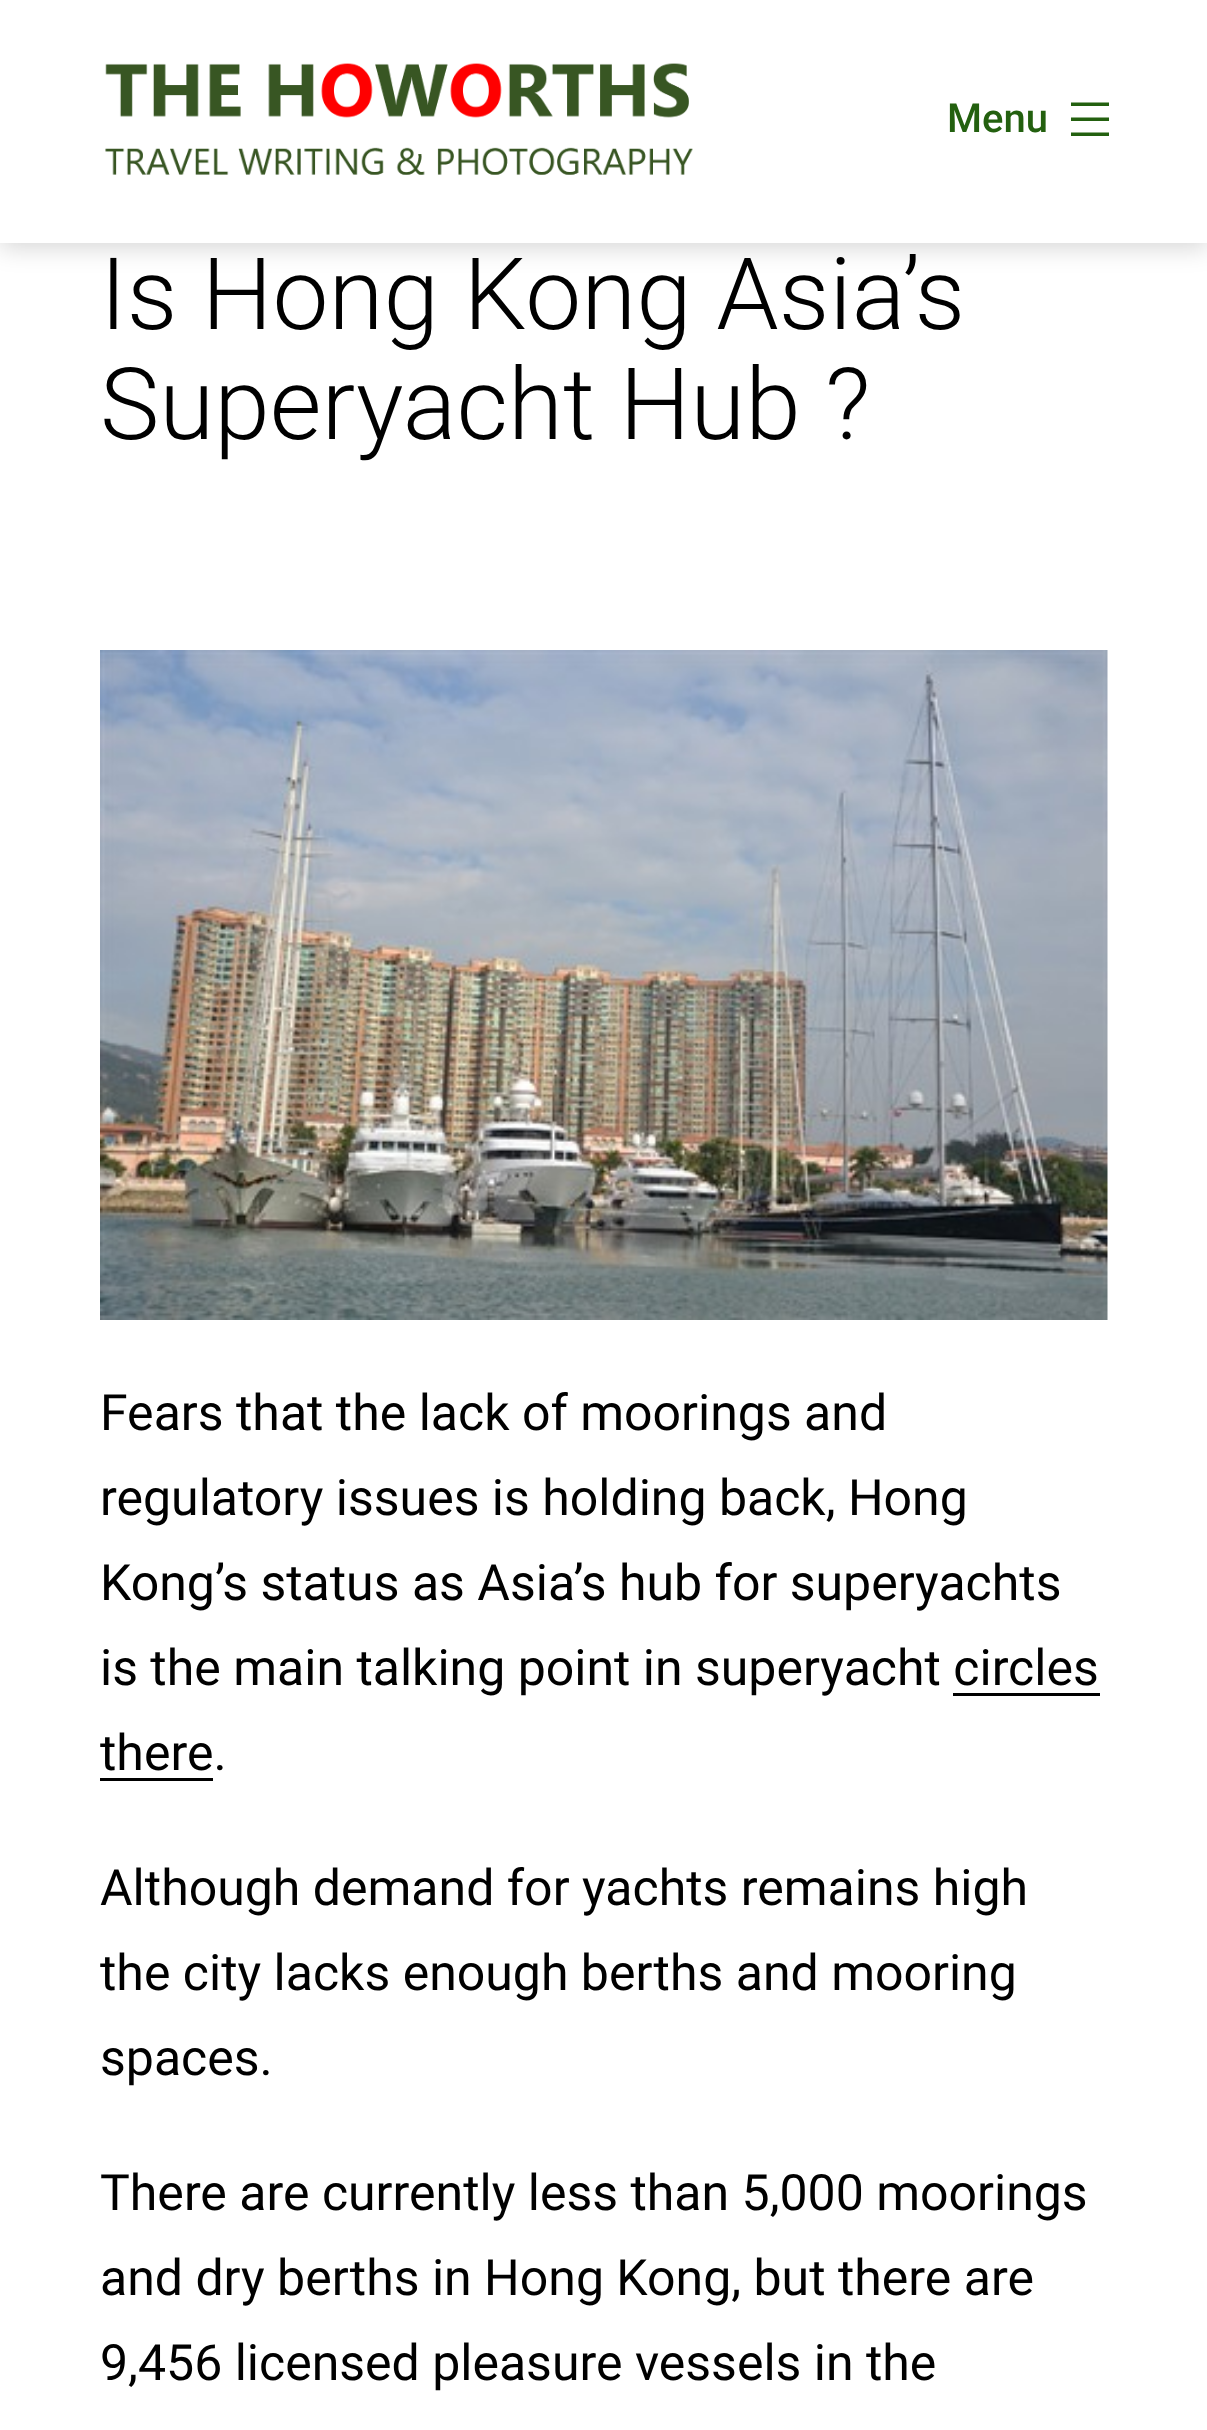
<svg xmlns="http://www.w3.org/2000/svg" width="1207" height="2430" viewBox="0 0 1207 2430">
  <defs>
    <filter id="blur1" x="-50%" y="-200%" width="200%" height="500%"><feGaussianBlur stdDeviation="12.5"/></filter>
  </defs>
  <rect width="100%" height="100%" fill="#ffffff"/>
  <rect x="0" y="5" width="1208" height="243" fill="#000000" fill-opacity="0.16" filter="url(#blur1)"/>
  <rect x="0" y="0" width="1207" height="243" fill="#ffffff"/>
  <image x="105" y="63" width="588" height="112" href="img1.png"/>
  <text x="947" y="132" font-family="Roboto" font-size="40" font-weight="500" fill="#23600f">Menu</text>
  <path d="M1071 102.5H1109V106H1071ZM1071 117.5H1109V121H1071ZM1109 132.5H1071V136H1109Z" fill="#23600f" fill-rule="evenodd"/>
  <text x="100" y="329" font-family="Roboto" font-size="100" font-weight="300" fill="#000000">Is Hong Kong Asia’s</text>
  <text x="100" y="439" font-family="Roboto" font-size="100" font-weight="300" fill="#000000">Superyacht Hub ?</text>
  <image x="100" y="650" width="1008" height="670" href="img2.png"/>
  <text x="100" y="1430" font-family="Roboto" font-size="50" fill="#000000">Fears that the lack of moorings and</text>
  <text x="100" y="1515" font-family="Roboto" font-size="50" fill="#000000">regulatory issues is holding back, Hong</text>
  <text x="100" y="1600" font-family="Roboto" font-size="50" fill="#000000">Kong’s status as Asia’s hub for superyachts</text>
  <text x="100" y="1685" font-family="Roboto" font-size="50" fill="#000000">is the main talking point in superyacht circles</text>
  <text x="100" y="1770" font-family="Roboto" font-size="50" fill="#000000">there.</text>
  <rect x="953" y="1693" width="147" height="3" fill="#000000"/>
  <rect x="100" y="1778" width="113" height="3" fill="#000000"/>
  <text x="100" y="1905" font-family="Roboto" font-size="50" fill="#000000">Although demand for yachts remains high</text>
  <text x="100" y="1990" font-family="Roboto" font-size="50" fill="#000000">the city lacks enough berths and mooring</text>
  <text x="100" y="2075" font-family="Roboto" font-size="50" fill="#000000">spaces.</text>
  <text x="100" y="2210" font-family="Roboto" font-size="50" fill="#000000">There are currently less than 5,000 moorings</text>
  <text x="100" y="2295" font-family="Roboto" font-size="50" fill="#000000">and dry berths in Hong Kong, but there are</text>
  <text x="100" y="2380" font-family="Roboto" font-size="50" fill="#000000">9,456 licensed pleasure vessels in the</text>
</svg>
